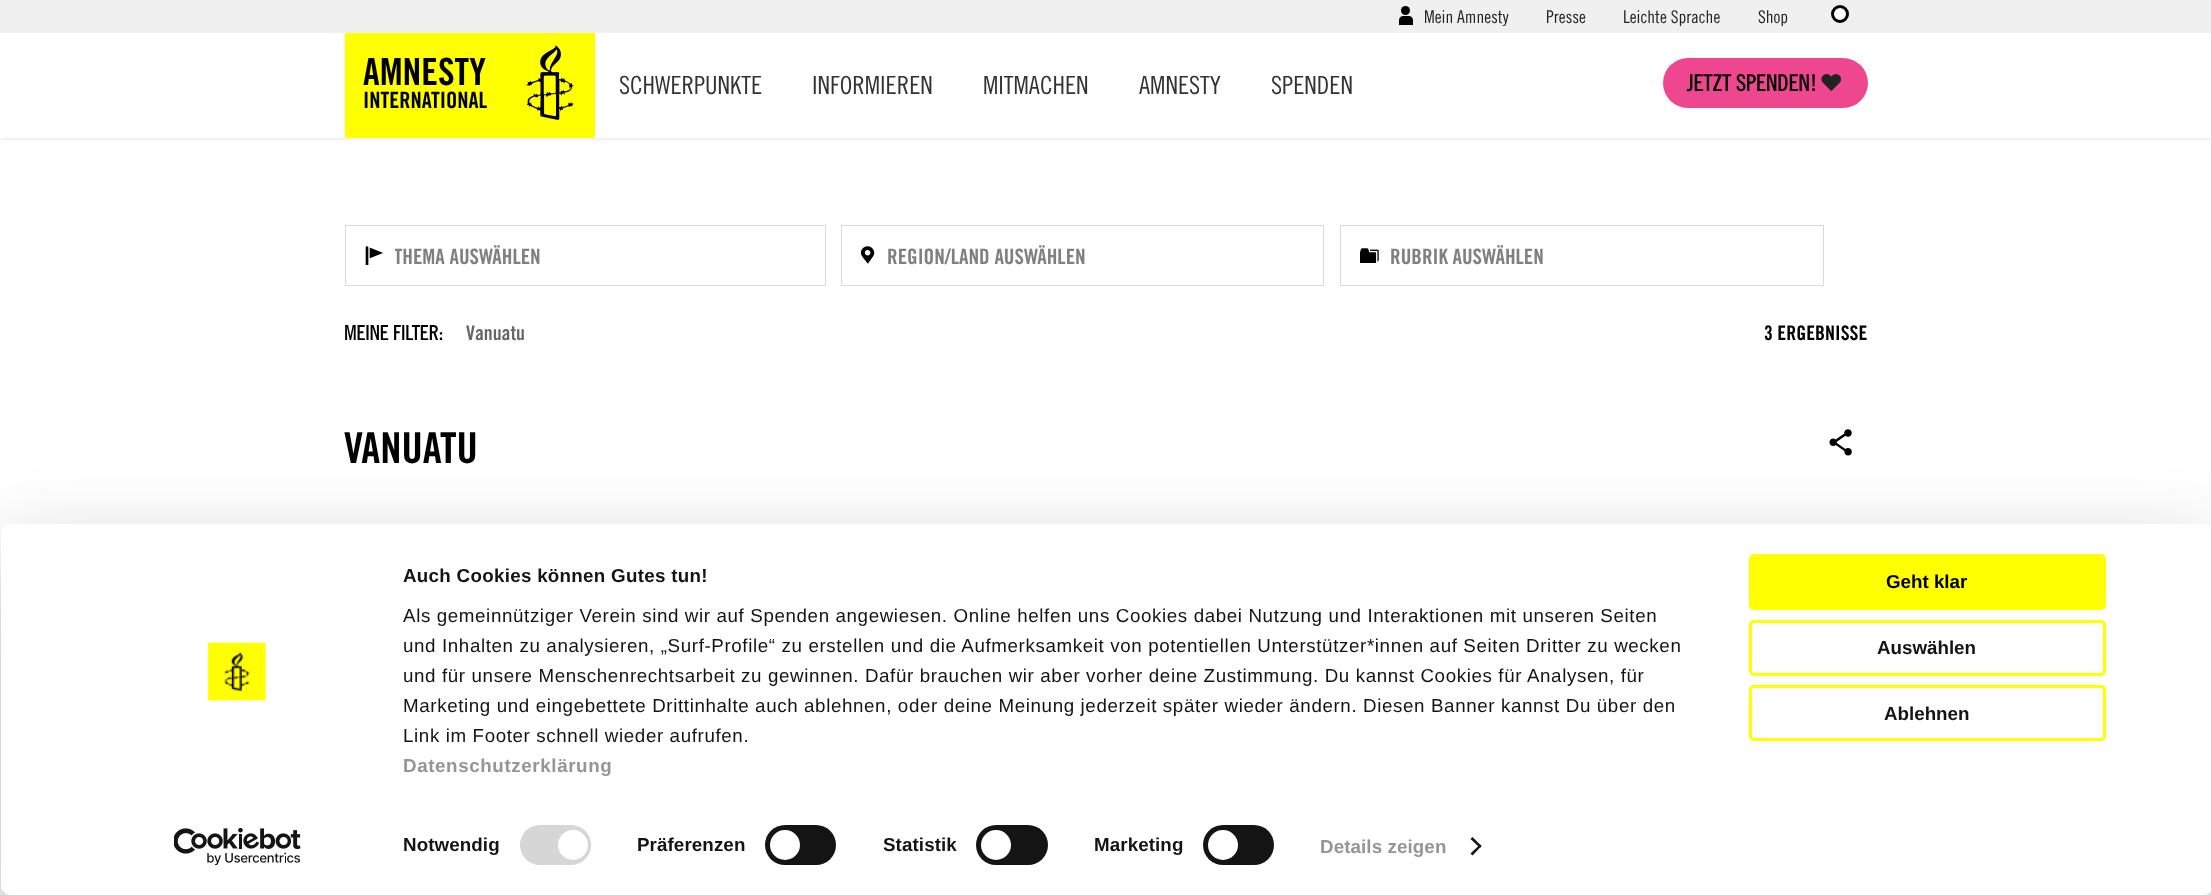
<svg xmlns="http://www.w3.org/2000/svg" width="2211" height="895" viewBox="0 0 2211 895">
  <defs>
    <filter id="blur1" x="-50%" y="-200%" width="200%" height="500%"><feGaussianBlur stdDeviation="2"/></filter>
    <clipPath id="clip1"><rect x="395" y="243" width="418" height="26"/></clipPath>
    <clipPath id="clip2"><path d="M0 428H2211V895H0ZM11 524H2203C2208.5 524 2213 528.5 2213 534V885C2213 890.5 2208.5 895 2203 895H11C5.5 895 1 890.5 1 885V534C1 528.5 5.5 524 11 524Z" clip-rule="evenodd"/></clipPath>
    <filter id="blur2" x="-50%" y="-200%" width="200%" height="500%"><feGaussianBlur stdDeviation="44"/></filter>
  </defs>
  <rect width="100%" height="100%" fill="#ffffff"/>
  <rect x="1" y="1" width="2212" height="138" fill="#000000" fill-opacity="0.1" filter="url(#blur1)"/>
  <rect x="0" y="33" width="2211" height="105" fill="#ffffff"/>
  <rect x="0" y="0" width="2211" height="33" fill="#f0f0f0"/>
  <circle cx="1405.5" cy="10.5" r="4.5" fill="#000000"/>
  <text x="1424" y="23" font-family="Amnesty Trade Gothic" font-size="17.5" fill="#222222">Mein Amnesty</text>
  <path d="M1403 16H1409C1411 16 1413 18 1413 20V25H1399V20C1399 18 1401 16 1403 16Z" fill="#000000"/>
  <text x="1546" y="23" font-family="Amnesty Trade Gothic" font-size="17.5" fill="#222222">Presse</text>
  <text x="1623" y="23" font-family="Amnesty Trade Gothic" font-size="17.5" fill="#222222">Leichte Sprache</text>
  <text x="1758" y="23" font-family="Amnesty Trade Gothic" font-size="17.5" fill="#222222">Shop</text>
  <circle cx="1840" cy="14" r="7.5" fill="#ffffff" stroke="#000000" stroke-width="3"/>
  <rect x="345" y="33" width="250" height="105" fill="#ffff00"/>
  <text x="363" y="85" font-family="'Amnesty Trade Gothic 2'" font-size="37.5" font-weight="bold" fill="#000000">AMNESTY</text>
  <text x="363" y="108" font-family="'Amnesty Trade Gothic 2'" font-size="22.5" font-weight="bold" fill="#000000">INTERNATIONAL</text>
  <image x="526" y="45" width="48" height="75" href="img1.png"/>
  <text x="619" y="94" font-family="Amnesty Trade Gothic" font-size="25" fill="#333333">SCHWERPUNKTE</text>
  <text x="812" y="94" font-family="Amnesty Trade Gothic" font-size="25" fill="#333333">INFORMIEREN</text>
  <text x="983" y="94" font-family="Amnesty Trade Gothic" font-size="25" fill="#333333">MITMACHEN</text>
  <text x="1139" y="94" font-family="Amnesty Trade Gothic" font-size="25" fill="#333333">AMNESTY</text>
  <text x="1271" y="94" font-family="Amnesty Trade Gothic" font-size="25" fill="#333333">SPENDEN</text>
  <rect x="1663" y="58" width="205" height="50" rx="25" fill="#ee4790"/>
  <image x="1821" y="74" width="20" height="17" href="img2.png"/>
  <text x="1687" y="91" font-family="Amnesty Trade Gothic" font-size="22.5" font-weight="bold" fill="#000000">JETZT SPENDEN!</text>
  <image x="365" y="246" width="18" height="19" href="img3.png"/>
  <rect x="345.5" y="225.5" width="480" height="60" fill="none" stroke="#dadada"/>
  <g clip-path="url(#clip1)">
    <text x="394" y="264" font-family="'Amnesty Trade Gothic 2'" font-size="21.25" font-weight="bold" fill="#808080">THEMA AUSWÄHLEN</text>
  </g>
  <image x="860" y="246" width="15" height="18" href="img4.png"/>
  <rect x="841.5" y="225.5" width="482" height="60" fill="none" stroke="#dadada"/>
  <text x="887" y="264" font-family="'Amnesty Trade Gothic 2'" font-size="21.25" font-weight="bold" fill="#808080">REGION/LAND AUSWÄHLEN</text>
  <image x="1360" y="248" width="19" height="15" href="img5.png"/>
  <rect x="1340.5" y="225.5" width="483" height="60" fill="none" stroke="#dadada"/>
  <text x="1390" y="264" font-family="'Amnesty Trade Gothic 2'" font-size="21.25" font-weight="bold" fill="#808080">RUBRIK AUSWÄHLEN</text>
  <text x="344" y="340" font-family="Amnesty Trade Gothic" font-size="20" font-weight="bold" fill="#000000">MEINE FILTER:</text>
  <text x="466" y="340" font-family="'Amnesty Trade Gothic 2'" font-size="20" font-weight="bold" fill="#666666">Vanuatu</text>
  <text x="1764" y="340" font-family="'Amnesty Trade Gothic 2'" font-size="20" font-weight="bold" fill="#000000">3 ERGEBNISSE</text>
  <text x="344" y="463" font-family="'Amnesty Trade Gothic 2'" font-size="42.5" font-weight="bold" fill="#000000">VANUATU</text>
  <image x="1829" y="429" width="23" height="27" href="img6.png"/>
  <g clip-path="url(#clip2)">
    <rect x="1" y="561" width="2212" height="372" rx="10" fill="#000000" fill-opacity="0.3" filter="url(#blur2)"/>
  </g>
  <rect x="1" y="524" width="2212" height="371" rx="10" fill="#ffffff"/>
  <image x="208" y="642" width="58" height="59" href="img7.png"/>
  <image x="174" y="828" width="127" height="37" href="img8.png"/>
  <text x="403" y="582" font-family="Liberation Sans" font-size="18.75" font-weight="bold" letter-spacing="0.3" fill="#141414">Auch Cookies können Gutes tun!</text>
  <text x="403" y="622" font-family="Liberation Sans" font-size="18.75" letter-spacing="0.62" fill="#141414">Als gemeinnütziger Verein sind wir auf Spenden angewiesen. Online helfen uns Cookies dabei Nutzung und Interaktionen mit unseren Seiten</text>
  <text x="403" y="652" font-family="Liberation Sans" font-size="18.75" letter-spacing="0.62" fill="#141414">und Inhalten zu analysieren, „Surf-Profile“ zu erstellen und die Aufmerksamkeit von potentiellen Unterstützer*innen auf Seiten Dritter zu wecken</text>
  <text x="403" y="682" font-family="Liberation Sans" font-size="18.75" letter-spacing="0.62" fill="#141414">und für unsere Menschenrechtsarbeit zu gewinnen. Dafür brauchen wir aber vorher deine Zustimmung. Du kannst Cookies für Analysen, für</text>
  <text x="403" y="712" font-family="Liberation Sans" font-size="18.75" letter-spacing="0.62" fill="#141414">Marketing und eingebettete Drittinhalte auch ablehnen, oder deine Meinung jederzeit später wieder ändern. Diesen Banner kannst Du über den</text>
  <text x="403" y="742" font-family="Liberation Sans" font-size="18.75" letter-spacing="0.62" fill="#141414">Link im Footer schnell wieder aufrufen.</text>
  <text x="403" y="772" font-family="Liberation Sans" font-size="18.75" font-weight="bold" letter-spacing="0.62" fill="#939598">Datenschutzerklärung</text>
  <text x="403" y="851" font-family="Liberation Sans" font-size="18.75" font-weight="bold" letter-spacing="0.1" fill="#141414">Notwendig</text>
  <rect x="520" y="825" width="71" height="40" rx="20" fill="#d6d6d6"/>
  <circle cx="573" cy="845" r="15" fill="#ffffff"/>
  <text x="637" y="851" font-family="Liberation Sans" font-size="18.75" font-weight="bold" letter-spacing="0.1" fill="#141414">Präferenzen</text>
  <rect x="765" y="825" width="71" height="40" rx="20" fill="#141414"/>
  <circle cx="785" cy="845" r="15" fill="#ffffff"/>
  <text x="883" y="851" font-family="Liberation Sans" font-size="18.75" font-weight="bold" letter-spacing="0.1" fill="#141414">Statistik</text>
  <rect x="976" y="825" width="72" height="40" rx="20" fill="#141414"/>
  <circle cx="996" cy="845" r="15" fill="#ffffff"/>
  <text x="1094" y="851" font-family="Liberation Sans" font-size="18.75" font-weight="bold" letter-spacing="0.1" fill="#141414">Marketing</text>
  <rect x="1203" y="825" width="71" height="40" rx="20" fill="#141414"/>
  <circle cx="1223" cy="845" r="15" fill="#ffffff"/>
  <text x="1320" y="853" font-family="Liberation Sans" font-size="18.75" font-weight="bold" letter-spacing="0.1" fill="#939598">Details zeigen</text>
  <path d="M1472.5 837L1481.5 846L1480 848L1470.5 839Z" fill="#141414"/>
  <path d="M1480 844.5L1481.5 846L1472.5 855.5L1470.5 853.5Z" fill="#141414"/>
  <rect x="1750.5" y="555.5" width="354" height="53" rx="3.5" fill="#ffff00" stroke="#ffff00" stroke-width="3"/>
  <text x="1886" y="588" font-family="Liberation Sans" font-size="18.75" font-weight="bold" fill="#000000">Geht klar</text>
  <rect x="1750.5" y="621.5" width="354" height="53" rx="3.5" fill="none" stroke="#ffff00" stroke-width="3"/>
  <text x="1877" y="654" font-family="Liberation Sans" font-size="18.75" font-weight="bold" fill="#141414">Auswählen</text>
  <rect x="1750.5" y="686.5" width="354" height="53" rx="3.5" fill="none" stroke="#ffff00" stroke-width="3"/>
  <text x="1884" y="720" font-family="Liberation Sans" font-size="18.75" font-weight="bold" fill="#141414">Ablehnen</text>
</svg>
